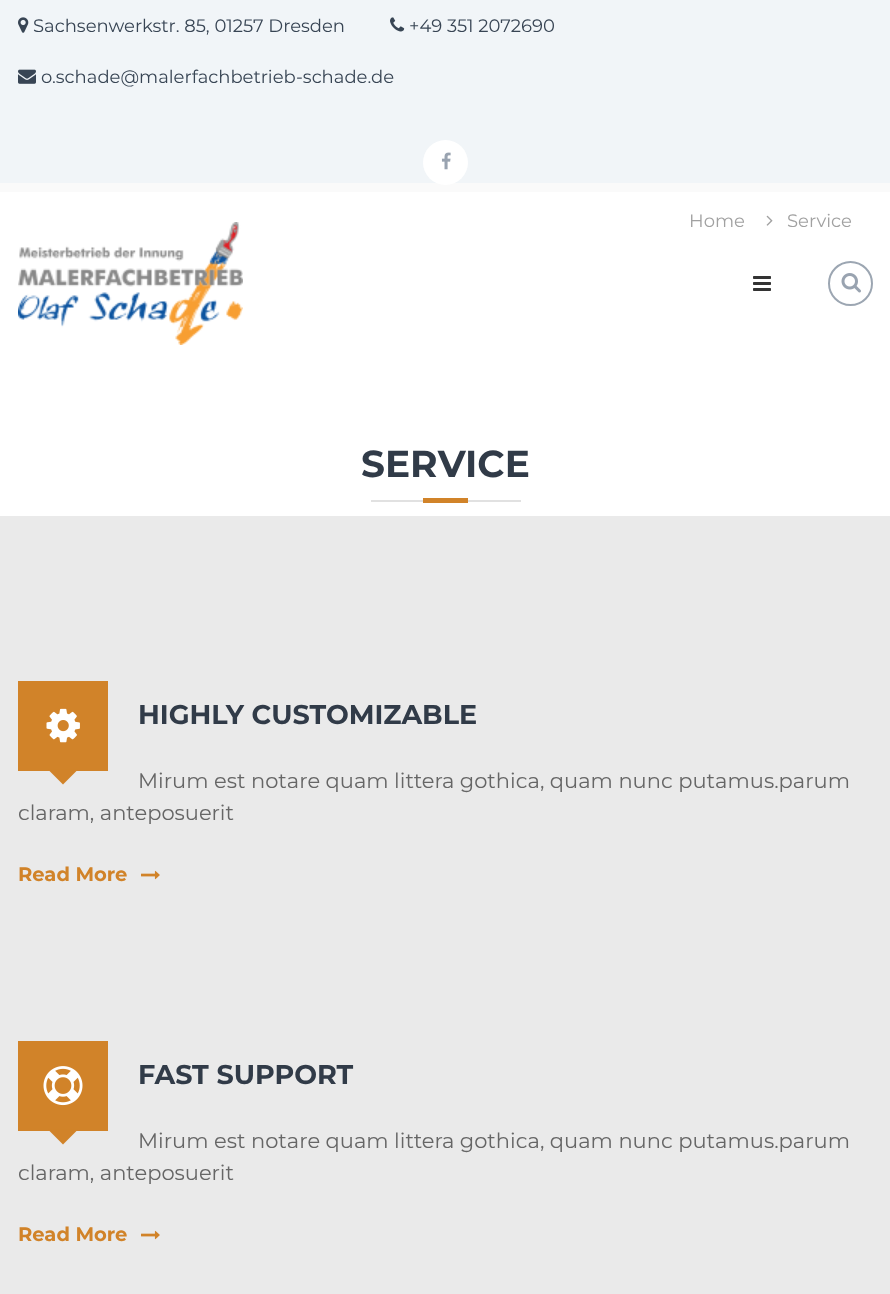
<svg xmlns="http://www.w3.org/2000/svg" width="890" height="1294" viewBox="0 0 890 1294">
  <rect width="100%" height="100%" fill="#ffffff"/>
  <rect x="0" y="0" width="890" height="183" fill="#f1f5f8"/>
  <image x="18" y="17" width="11" height="16" href="img1.png"/>
  <text x="33" y="32" font-family="Montserrat" font-size="18" fill="#384554">Sachsenwerkstr. 85, 01257 Dresden</text>
  <image x="390" y="17" width="15" height="15" href="img2.png"/>
  <text x="409" y="32" font-family="Montserrat" font-size="18" fill="#384554">+49 351 2072690</text>
  <image x="18" y="69" width="18" height="15" href="img3.png"/>
  <text x="41" y="83" font-family="Montserrat" font-size="18" fill="#384554">o.schade@malerfachbetrieb-schade.de</text>
  <rect x="0" y="183" width="890" height="9" fill="#fafafa"/>
  <circle cx="445.5" cy="162.5" r="22.5" fill="#ffffff"/>
  <image x="441" y="152" width="10" height="18" href="img4.png"/>
  <image x="18" y="222" width="225" height="123" href="img5.png"/>
  <image x="753" y="276" width="18" height="15" href="img6.png"/>
  <circle cx="850.5" cy="283.5" r="21.5" fill="none" stroke="#9ca6b2" stroke-width="2"/>
  <image x="841" y="273" width="20" height="20" href="img7.png"/>
  <text x="689" y="227" font-family="Montserrat" font-size="18" fill="#a1a1a1">Home</text>
  <image x="766" y="215" width="7" height="11" href="img8.png"/>
  <text x="787" y="227" font-family="Montserrat" font-size="18" fill="#a1a1a1">Service</text>
  <text x="361" y="477" font-family="Montserrat" font-size="37.5" font-weight="bold" fill="#313b48">SERVICE</text>
  <rect x="371" y="500" width="150" height="2" fill="#e1e1e1"/>
  <rect x="423" y="498" width="45" height="5" fill="#d18329"/>
  <rect x="0" y="516" width="890" height="778" fill="#eaeaea"/>
  <rect x="18" y="681" width="90" height="90" fill="#d18329"/>
  <image x="46" y="708" width="34" height="35" href="img9.png"/>
  <path d="M48 769.5H78L63 784.5Z" fill="#d18329"/>
  <text x="138" y="724" font-family="Montserrat" font-size="27" font-weight="bold" fill="#313b48">HIGHLY CUSTOMIZABLE</text>
  <text x="138" y="788" font-family="Montserrat" font-size="21" fill="#666666">Mirum est notare quam littera gothica, quam nunc putamus.parum</text>
  <text x="18" y="820" font-family="Montserrat" font-size="21" fill="#666666">claram, anteposuerit</text>
  <text x="18" y="881" font-family="Montserrat" font-size="19.5" font-weight="bold" fill="#d18329">Read More</text>
  <image x="141" y="870" width="19" height="10" href="img10.png"/>
  <rect x="18" y="1041" width="90" height="90" fill="#d18329"/>
  <image x="43" y="1066" width="40" height="40" href="img11.png"/>
  <path d="M48 1129.5H78L63 1144.5Z" fill="#d18329"/>
  <text x="138" y="1084" font-family="Montserrat" font-size="27" font-weight="bold" fill="#313b48">FAST SUPPORT</text>
  <text x="138" y="1148" font-family="Montserrat" font-size="21" fill="#666666">Mirum est notare quam littera gothica, quam nunc putamus.parum</text>
  <text x="18" y="1180" font-family="Montserrat" font-size="21" fill="#666666">claram, anteposuerit</text>
  <text x="18" y="1241" font-family="Montserrat" font-size="19.5" font-weight="bold" fill="#d18329">Read More</text>
  <image x="141" y="1230" width="19" height="10" href="img10.png"/>
</svg>
